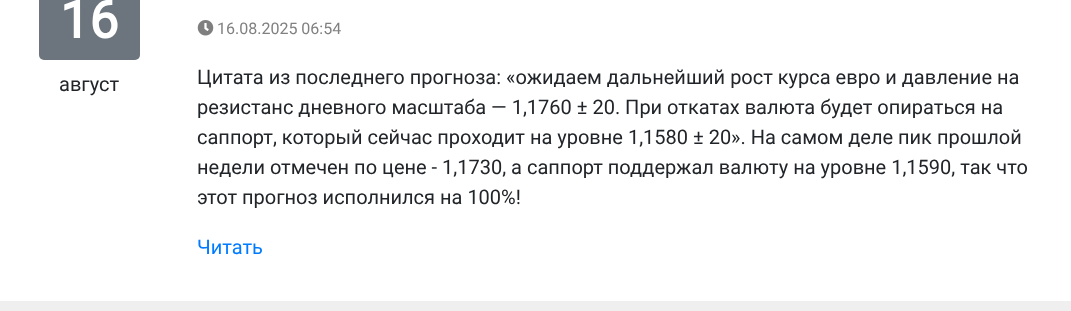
<svg xmlns="http://www.w3.org/2000/svg" width="1071" height="311" viewBox="0 0 1071 311">
  <rect width="100%" height="100%" fill="#ffffff"/>
  <rect x="39" y="-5" width="101" height="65" rx="5" fill="#6c757d"/>
  <text x="60" y="38" font-family="Roboto" font-size="52" font-weight="bold" fill="#ffffff">16</text>
  <text x="59" y="91" font-family="Roboto" font-size="20" fill="#212529">август</text>
  <image x="197" y="20" width="17" height="16" href="img1.png"/>
  <text x="217" y="34" font-family="Roboto" font-size="16" fill="#808080">16.08.2025 06:54</text>
  <text x="197" y="84" font-family="Roboto" font-size="20" fill="#212529">Цитата из последнего прогноза: «ожидаем дальнейший рост курса евро и давление на</text>
  <text x="197" y="114" font-family="Roboto" font-size="20" fill="#212529">резистанс дневного масштаба — 1,1760 ± 20. При откатах валюта будет опираться на</text>
  <text x="197" y="144" font-family="Roboto" font-size="20" fill="#212529">саппорт, который сейчас проходит на уровне 1,1580 ± 20». На самом деле пик прошлой</text>
  <text x="197" y="174" font-family="Roboto" font-size="20" fill="#212529">недели отмечен по цене - 1,1730, а саппорт поддержал валюту на уровне 1,1590, так что</text>
  <text x="197" y="204" font-family="Roboto" font-size="20" fill="#212529">этот прогноз исполнился на 100%!</text>
  <text x="197" y="254" font-family="Roboto" font-size="20" fill="#007bff">Читать</text>
  <rect x="0" y="301" width="1071" height="10" fill="#efefef"/>
</svg>
